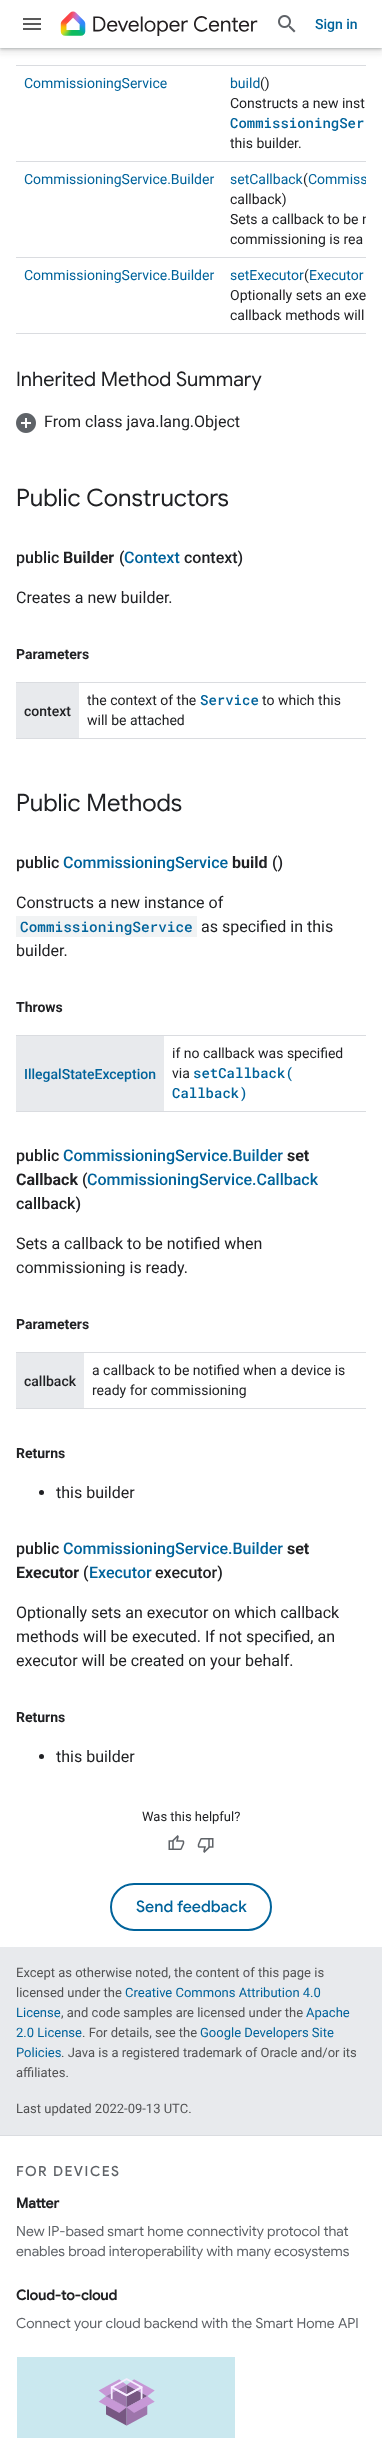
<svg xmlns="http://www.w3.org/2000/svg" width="382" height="2438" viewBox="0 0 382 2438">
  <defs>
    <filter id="blur1" x="-50%" y="-200%" width="200%" height="500%"><feGaussianBlur stdDeviation="3"/></filter>
    <filter id="blur2" x="-50%" y="-200%" width="200%" height="500%"><feGaussianBlur stdDeviation="1"/></filter>
    <clipPath id="clip1"><rect x="16" y="65" width="350" height="269"/></clipPath>
  </defs>
  <rect width="100%" height="100%" fill="#e8eaed"/>
  <rect x="0" y="48" width="382" height="1899" fill="#ffffff"/>
  <rect x="-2" y="-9" width="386" height="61" fill="#3c4043" fill-opacity="0.15" filter="url(#blur1)"/>
  <rect x="0" y="-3" width="382" height="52" fill="#3c4043" fill-opacity="0.3" filter="url(#blur2)"/>
  <rect x="0" y="0" width="382" height="48" fill="#ffffff"/>
  <image x="23" y="18" width="18" height="12" href="img1.png"/>
  <image x="60" y="11" width="198" height="25" href="img2.png"/>
  <image x="278" y="15" width="18" height="18" href="img3.png"/>
  <text x="315" y="29" font-family="Roboto" font-size="14" font-weight="500" fill="#00639b">Sign in</text>
  <rect x="16" y="65" width="350" height="1" fill="#dadce0"/>
  <rect x="16" y="161" width="350" height="1" fill="#dadce0"/>
  <text x="24" y="88" font-family="Roboto" font-size="14" fill="#00639b">CommissioningService</text>
  <text x="230" y="88" font-family="Roboto" font-size="14" fill="#00639b">build</text>
  <text x="260" y="88" font-family="Roboto" font-size="14" fill="#202124">()</text>
  <text x="230" y="108" font-family="Roboto" font-size="14" fill="#202124">Constructs a new inst</text>
  <text x="230" y="128" font-family="Roboto Mono" font-size="14" font-weight="500" fill="#00639b">CommissioningSer</text>
  <text x="230" y="148" font-family="Roboto" font-size="14" fill="#202124">this builder.</text>
  <rect x="16" y="257" width="350" height="1" fill="#dadce0"/>
  <text x="24" y="184" font-family="Roboto" font-size="14" fill="#00639b">CommissioningService.Builder</text>
  <text x="230" y="184" font-family="Roboto" font-size="14" fill="#00639b">setCallback</text>
  <text x="303" y="184" font-family="Roboto" font-size="14" fill="#202124">(</text>
  <g clip-path="url(#clip1)">
    <text x="308" y="184" font-family="Roboto" font-size="14" fill="#00639b">Commiss</text>
  </g>
  <text x="230" y="204" font-family="Roboto" font-size="14" fill="#202124">callback)</text>
  <g clip-path="url(#clip1)">
    <text x="230" y="224" font-family="Roboto" font-size="14" fill="#202124">Sets a callback to be n</text>
  </g>
  <text x="230" y="244" font-family="Roboto" font-size="14" fill="#202124">commissioning is rea</text>
  <rect x="16" y="333" width="350" height="1" fill="#dadce0"/>
  <text x="24" y="280" font-family="Roboto" font-size="14" fill="#00639b">CommissioningService.Builder</text>
  <text x="230" y="280" font-family="Roboto" font-size="14" fill="#00639b">setExecutor</text>
  <text x="304" y="280" font-family="Roboto" font-size="14" fill="#202124">(</text>
  <text x="309" y="280" font-family="Roboto" font-size="14" fill="#00639b">Executor</text>
  <text x="230" y="300" font-family="Roboto" font-size="14" fill="#202124">Optionally sets an exe</text>
  <text x="230" y="320" font-family="Roboto" font-size="14" fill="#202124">callback methods will</text>
  <text x="16" y="386" font-family="Google Sans" font-size="20" fill="#202124">Inherited Method Summary</text>
  <image x="16" y="413" width="20" height="20" href="img4.png"/>
  <text x="44" y="427" font-family="Roboto" font-size="16" fill="#202124">From class java.lang.Object</text>
  <text x="16" y="506" font-family="Google Sans" font-size="24" fill="#202124">Public Constructors</text>
  <text x="16" y="563" font-family="Roboto" font-size="16" font-weight="500" fill="#202124">public</text>
  <text x="63" y="563" font-family="Roboto" font-size="16" font-weight="bold" fill="#202124">Builder</text>
  <text x="119" y="563" font-family="Roboto" font-size="16" font-weight="500" fill="#202124">(</text>
  <text x="124" y="563" font-family="Roboto" font-size="16" font-weight="500" fill="#00639b">Context</text>
  <text x="184" y="563" font-family="Roboto" font-size="16" font-weight="500" fill="#202124">context)</text>
  <text x="16" y="603" font-family="Roboto" font-size="16" fill="#202124">Creates a new builder.</text>
  <text x="16" y="659" font-family="Roboto" font-size="14" font-weight="bold" fill="#202124">Parameters</text>
  <rect x="16" y="682" width="350" height="1" fill="#dadce0"/>
  <rect x="16" y="738" width="350" height="1" fill="#dadce0"/>
  <rect x="16" y="683" width="63" height="55" fill="#e8eaed"/>
  <text x="24" y="716" font-family="Roboto" font-size="14" font-weight="500" fill="#202124">context</text>
  <text x="87" y="705" font-family="Roboto" font-size="14" fill="#202124">the context of the</text>
  <text x="200" y="705" font-family="Roboto Mono" font-size="14" font-weight="500" fill="#00639b">Service</text>
  <text x="262" y="705" font-family="Roboto" font-size="14" fill="#202124">to which this</text>
  <text x="87" y="725" font-family="Roboto" font-size="14" fill="#202124">will be attached</text>
  <text x="16" y="811" font-family="Google Sans" font-size="24" fill="#202124">Public Methods</text>
  <text x="16" y="868" font-family="Roboto" font-size="16" font-weight="500" fill="#202124">public</text>
  <text x="63" y="868" font-family="Roboto" font-size="16" font-weight="500" fill="#00639b">CommissioningService</text>
  <text x="232" y="868" font-family="Roboto" font-size="16" font-weight="bold" fill="#202124">build</text>
  <text x="272" y="868" font-family="Roboto" font-size="16" font-weight="500" fill="#202124">()</text>
  <text x="16" y="908" font-family="Roboto" font-size="16" fill="#202124">Constructs a new instance of</text>
  <rect x="16" y="916" width="181" height="21" fill="#f1f3f4"/>
  <text x="20" y="932" font-family="Roboto Mono" font-size="14.4" font-weight="500" fill="#00639b">CommissioningService</text>
  <text x="201" y="932" font-family="Roboto" font-size="16" fill="#202124">as specified in this</text>
  <text x="16" y="956" font-family="Roboto" font-size="16" fill="#202124">builder.</text>
  <text x="16" y="1012" font-family="Roboto" font-size="14" font-weight="bold" fill="#202124">Throws</text>
  <rect x="16" y="1035" width="350" height="1" fill="#dadce0"/>
  <rect x="16" y="1111" width="350" height="1" fill="#dadce0"/>
  <rect x="16" y="1036" width="148" height="75" fill="#e8eaed"/>
  <text x="24" y="1079" font-family="Roboto" font-size="14" font-weight="500" fill="#00639b">IllegalStateException</text>
  <text x="172" y="1058" font-family="Roboto" font-size="14" fill="#202124">if no callback was specified</text>
  <text x="172" y="1078" font-family="Roboto" font-size="14" fill="#202124">via</text>
  <text x="193" y="1078" font-family="Roboto Mono" font-size="14" font-weight="500" fill="#00639b">setCallback(</text>
  <text x="172" y="1098" font-family="Roboto Mono" font-size="14" font-weight="500" fill="#00639b">Callback)</text>
  <text x="16" y="1161" font-family="Roboto" font-size="16" font-weight="500" fill="#202124">public</text>
  <text x="63" y="1161" font-family="Roboto" font-size="16" font-weight="500" fill="#00639b">CommissioningService.Builder</text>
  <text x="287" y="1161" font-family="Roboto" font-size="16" font-weight="bold" fill="#202124">set</text>
  <text x="16" y="1185" font-family="Roboto" font-size="16" font-weight="bold" fill="#202124">Callback</text>
  <text x="82" y="1185" font-family="Roboto" font-size="16" font-weight="500" fill="#202124">(</text>
  <text x="87" y="1185" font-family="Roboto" font-size="16" font-weight="500" fill="#00639b">CommissioningService.Callback</text>
  <text x="16" y="1209" font-family="Roboto" font-size="16" font-weight="500" fill="#202124">callback)</text>
  <text x="16" y="1249" font-family="Roboto" font-size="16" fill="#202124">Sets a callback to be notified when</text>
  <text x="16" y="1273" font-family="Roboto" font-size="16" fill="#202124">commissioning is ready.</text>
  <text x="16" y="1329" font-family="Roboto" font-size="14" font-weight="bold" fill="#202124">Parameters</text>
  <rect x="16" y="1352" width="350" height="1" fill="#dadce0"/>
  <rect x="16" y="1408" width="350" height="1" fill="#dadce0"/>
  <rect x="16" y="1353" width="68" height="55" fill="#e8eaed"/>
  <text x="24" y="1386" font-family="Roboto" font-size="14" font-weight="500" fill="#202124">callback</text>
  <text x="92" y="1375" font-family="Roboto" font-size="14" fill="#202124">a callback to be notified when a device is</text>
  <text x="92" y="1395" font-family="Roboto" font-size="14" fill="#202124">ready for commissioning</text>
  <text x="16" y="1458" font-family="Roboto" font-size="14" font-weight="bold" fill="#202124">Returns</text>
  <circle cx="41.5" cy="1492.5" r="2.5" fill="#202124"/>
  <text x="56" y="1498" font-family="Roboto" font-size="16" fill="#202124">this builder</text>
  <text x="16" y="1554" font-family="Roboto" font-size="16" font-weight="500" fill="#202124">public</text>
  <text x="63" y="1554" font-family="Roboto" font-size="16" font-weight="500" fill="#00639b">CommissioningService.Builder</text>
  <text x="287" y="1554" font-family="Roboto" font-size="16" font-weight="bold" fill="#202124">set</text>
  <text x="16" y="1578" font-family="Roboto" font-size="16" font-weight="bold" fill="#202124">Executor</text>
  <text x="83" y="1578" font-family="Roboto" font-size="16" font-weight="500" fill="#202124">(</text>
  <text x="89" y="1578" font-family="Roboto" font-size="16" font-weight="500" fill="#00639b">Executor</text>
  <text x="155" y="1578" font-family="Roboto" font-size="16" font-weight="500" fill="#202124">executor)</text>
  <text x="16" y="1618" font-family="Roboto" font-size="16" fill="#202124">Optionally sets an executor on which callback</text>
  <text x="16" y="1642" font-family="Roboto" font-size="16" fill="#202124">methods will be executed. If not specified, an</text>
  <text x="16" y="1666" font-family="Roboto" font-size="16" fill="#202124">executor will be created on your behalf.</text>
  <text x="16" y="1722" font-family="Roboto" font-size="14" font-weight="bold" fill="#202124">Returns</text>
  <circle cx="41.5" cy="1756.5" r="2.5" fill="#202124"/>
  <text x="56" y="1762" font-family="Roboto" font-size="16" fill="#202124">this builder</text>
  <text x="142" y="1821" font-family="Roboto" font-size="13" fill="#202124">Was this helpful?</text>
  <image x="168" y="1835" width="17" height="15" href="img5.png"/>
  <image x="197" y="1838" width="17" height="15" href="img6.png"/>
  <rect x="111" y="1884" width="160" height="46" rx="23" fill="none" stroke="#00639b" stroke-width="2"/>
  <text x="136" y="1912" font-family="Google Sans" font-size="16" font-weight="500" fill="#00639b">Send feedback</text>
  <text x="16" y="1977" font-family="Roboto" font-size="13" fill="#515253">Except as otherwise noted, the content of this page is</text>
  <text x="16" y="1997" font-family="Roboto" font-size="13" fill="#515253">licensed under the</text>
  <text x="125" y="1997" font-family="Roboto" font-size="13" fill="#00639b">Creative Commons Attribution 4.0</text>
  <text x="16" y="2017" font-family="Roboto" font-size="13" fill="#00639b">License</text>
  <text x="61" y="2017" font-family="Roboto" font-size="13" fill="#515253">, and code samples are licensed under the</text>
  <text x="306" y="2017" font-family="Roboto" font-size="13" fill="#00639b">Apache</text>
  <text x="16" y="2037" font-family="Roboto" font-size="13" fill="#00639b">2.0 License</text>
  <text x="82" y="2037" font-family="Roboto" font-size="13" fill="#515253">. For details, see the</text>
  <text x="200" y="2037" font-family="Roboto" font-size="13" fill="#00639b">Google Developers Site</text>
  <text x="16" y="2057" font-family="Roboto" font-size="13" fill="#00639b">Policies</text>
  <text x="61" y="2057" font-family="Roboto" font-size="13" fill="#515253">. Java is a registered trademark of Oracle and/or its</text>
  <text x="16" y="2077" font-family="Roboto" font-size="13" fill="#515253">affiliates.</text>
  <text x="16" y="2113" font-family="Roboto" font-size="13" fill="#515253">Last updated 2022-09-13 UTC.</text>
  <rect x="0" y="2135" width="382" height="1" fill="#dadce0"/>
  <rect x="0" y="2136" width="382" height="302" fill="#ffffff"/>
  <text x="16" y="2176" font-family="Google Sans" font-size="14" font-weight="500" letter-spacing="1.5" fill="#5f6368">FOR DEVICES</text>
  <text x="16" y="2208" font-family="Google Sans" font-size="14" font-weight="bold" fill="#202124">Matter</text>
  <text x="16" y="2236" font-family="Google Sans" font-size="14" fill="#5f6368">New IP-based smart home connectivity protocol that</text>
  <text x="16" y="2256" font-family="Google Sans" font-size="14" fill="#5f6368">enables broad interoperability with many ecosystems</text>
  <text x="16" y="2300" font-family="Google Sans" font-size="14" font-weight="bold" fill="#202124">Cloud-to-cloud</text>
  <text x="16" y="2328" font-family="Google Sans" font-size="14" fill="#5f6368">Connect your cloud backend with the Smart Home API</text>
  <image x="17" y="2357" width="218" height="81" href="img7.png"/>
</svg>
